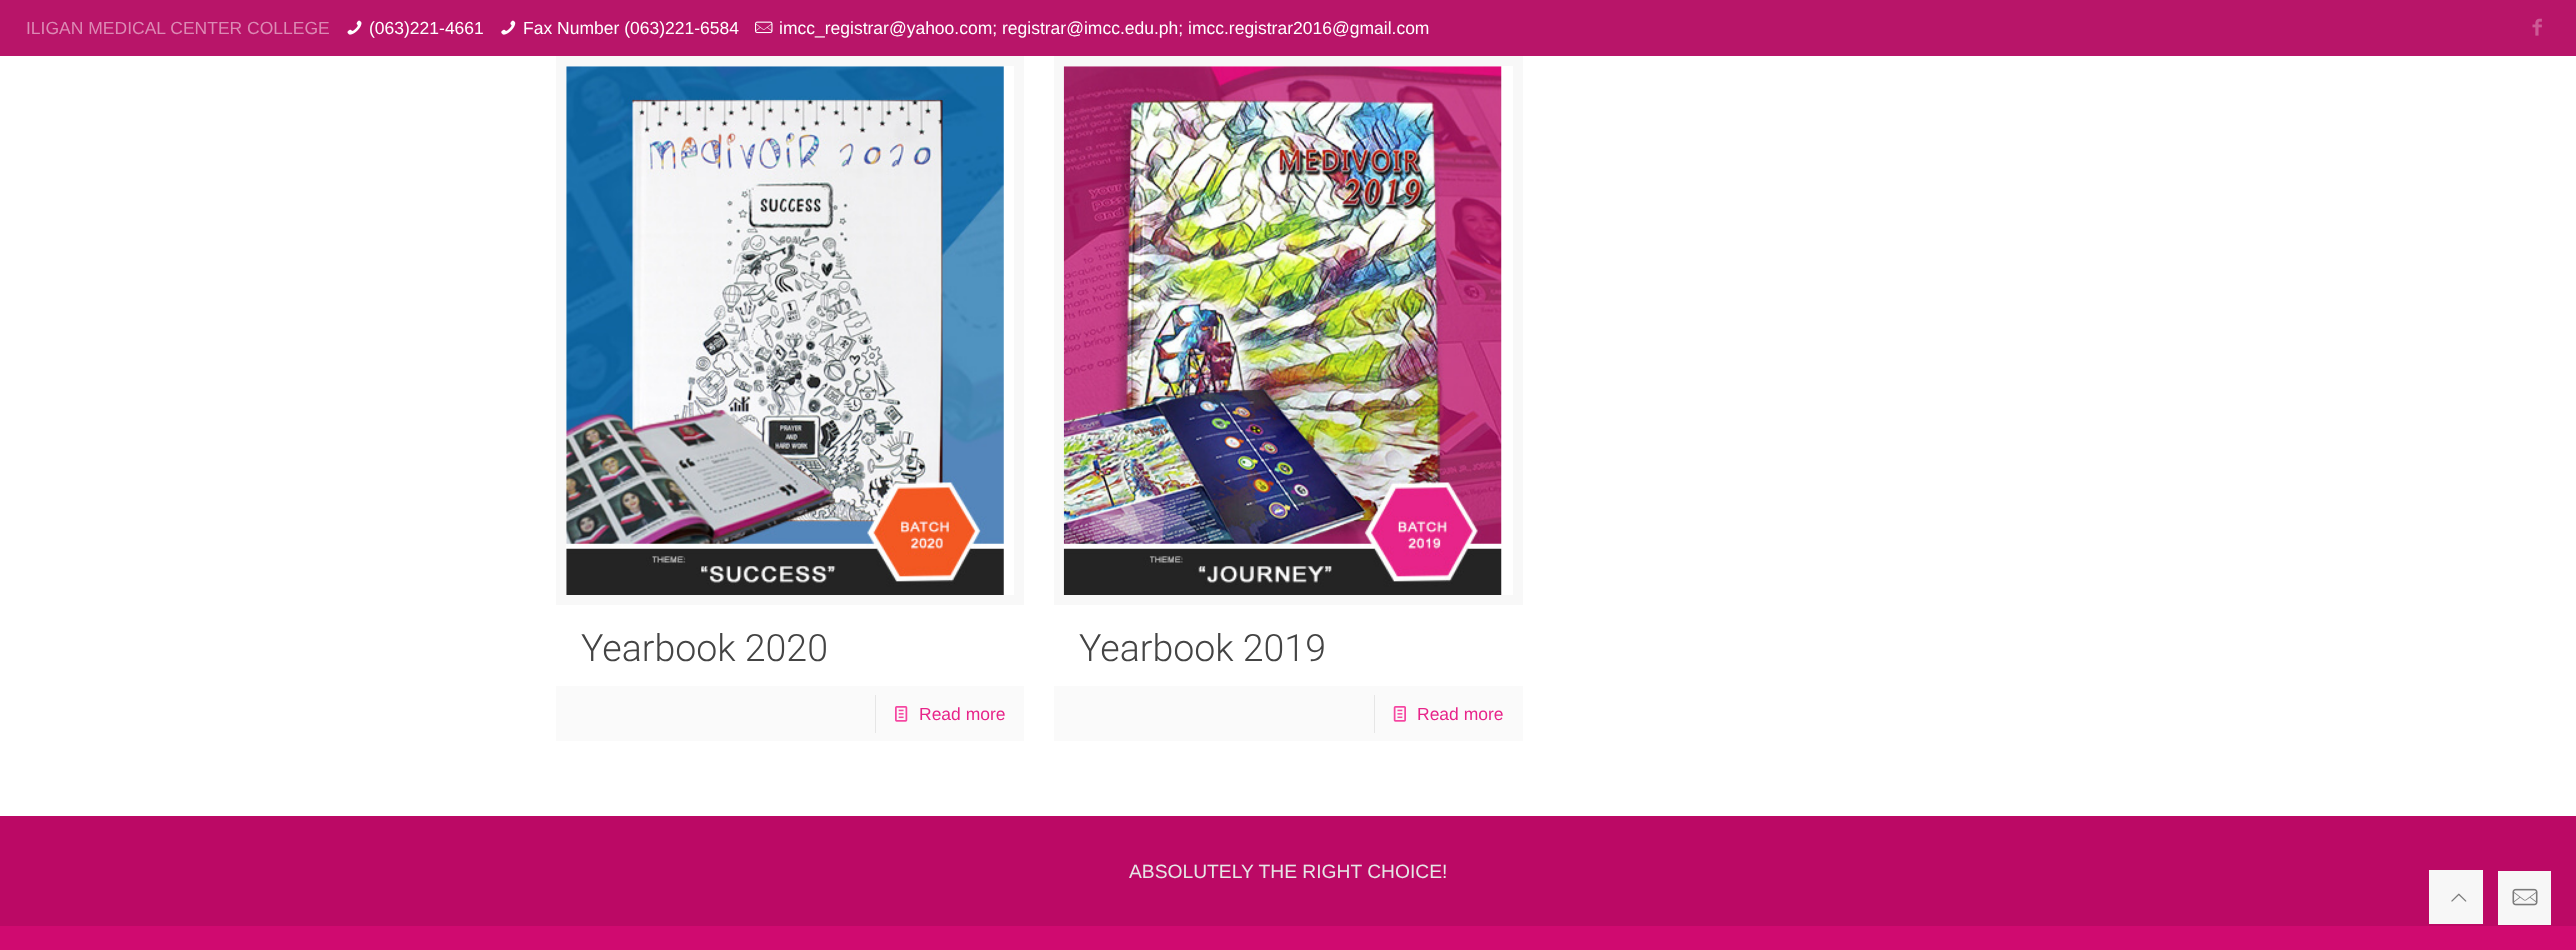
<svg xmlns="http://www.w3.org/2000/svg" width="2576" height="950" viewBox="0 0 2576 950">
  <rect width="100%" height="100%" fill="#ffffff"/>
  <rect x="0" y="0" width="2576" height="56" fill="#b81569"/>
  <text x="26" y="34" font-family="Liberation Sans" font-size="17.5" fill="#dc8ab4">ILIGAN MEDICAL CENTER COLLEGE</text>
  <image x="347" y="20" width="15" height="15" href="img1.png"/>
  <text x="369" y="34" font-family="Liberation Sans" font-size="17.5" fill="#ffffff">(063)221-4661</text>
  <image x="501" y="20" width="15" height="15" href="img2.png"/>
  <text x="523" y="34" font-family="Liberation Sans" font-size="17.5" fill="#ffffff">Fax Number (063)221-6584</text>
  <image x="755" y="21" width="18" height="13" href="img3.png"/>
  <text x="779" y="34" font-family="Liberation Sans" font-size="17.5" fill="#ffffff">imcc_registrar@yahoo.com; registrar@imcc.edu.ph; imcc.registrar2016@gmail.com</text>
  <image x="2532" y="18" width="10" height="18" href="img4.png"/>
  <rect x="561" y="61" width="458" height="539" fill="none" stroke="#f8f8f8" stroke-width="10"/>
  <image x="566" y="66" width="438" height="529" href="img5.png"/>
  <text x="581" y="661" font-family="Roboto" font-size="37.5" font-weight="300" fill="#444444">Yearbook 2020</text>
  <rect x="556" y="686" width="468" height="55" fill="#fafafa"/>
  <rect x="875" y="695" width="1" height="38" fill="#e6e6e6"/>
  <image x="895" y="706" width="13" height="16" href="img6.png"/>
  <text x="919" y="720" font-family="Liberation Sans" font-size="17.5" fill="#e72489">Read more</text>
  <rect x="1059" y="61" width="459" height="539" fill="none" stroke="#f8f8f8" stroke-width="10"/>
  <image x="1063" y="66" width="439" height="529" href="img7.png"/>
  <text x="1079" y="661" font-family="Roboto" font-size="37.5" font-weight="300" fill="#444444">Yearbook 2019</text>
  <rect x="1054" y="686" width="469" height="55" fill="#fafafa"/>
  <rect x="1374" y="695" width="1" height="38" fill="#e6e6e6"/>
  <image x="1393" y="706" width="13" height="16" href="img8.png"/>
  <text x="1417" y="720" font-family="Liberation Sans" font-size="17.5" fill="#e72489">Read more</text>
  <rect x="0" y="926" width="2576" height="24" fill="#d00a70"/>
  <rect x="0" y="816" width="2576" height="110" fill="#bb0965"/>
  <text x="1129" y="878" font-family="Liberation Sans" font-size="19.25" fill="#e6e6e6">ABSOLUTELY THE RIGHT CHOICE!</text>
  <rect x="2429" y="870" width="54" height="54" fill="#f7f7f7"/>
  <image x="2451" y="893" width="16" height="9" href="img9.png"/>
  <rect x="2498" y="871" width="53" height="54" fill="#f7f7f7"/>
  <image x="2512" y="888" width="26" height="18" href="img10.png"/>
</svg>
